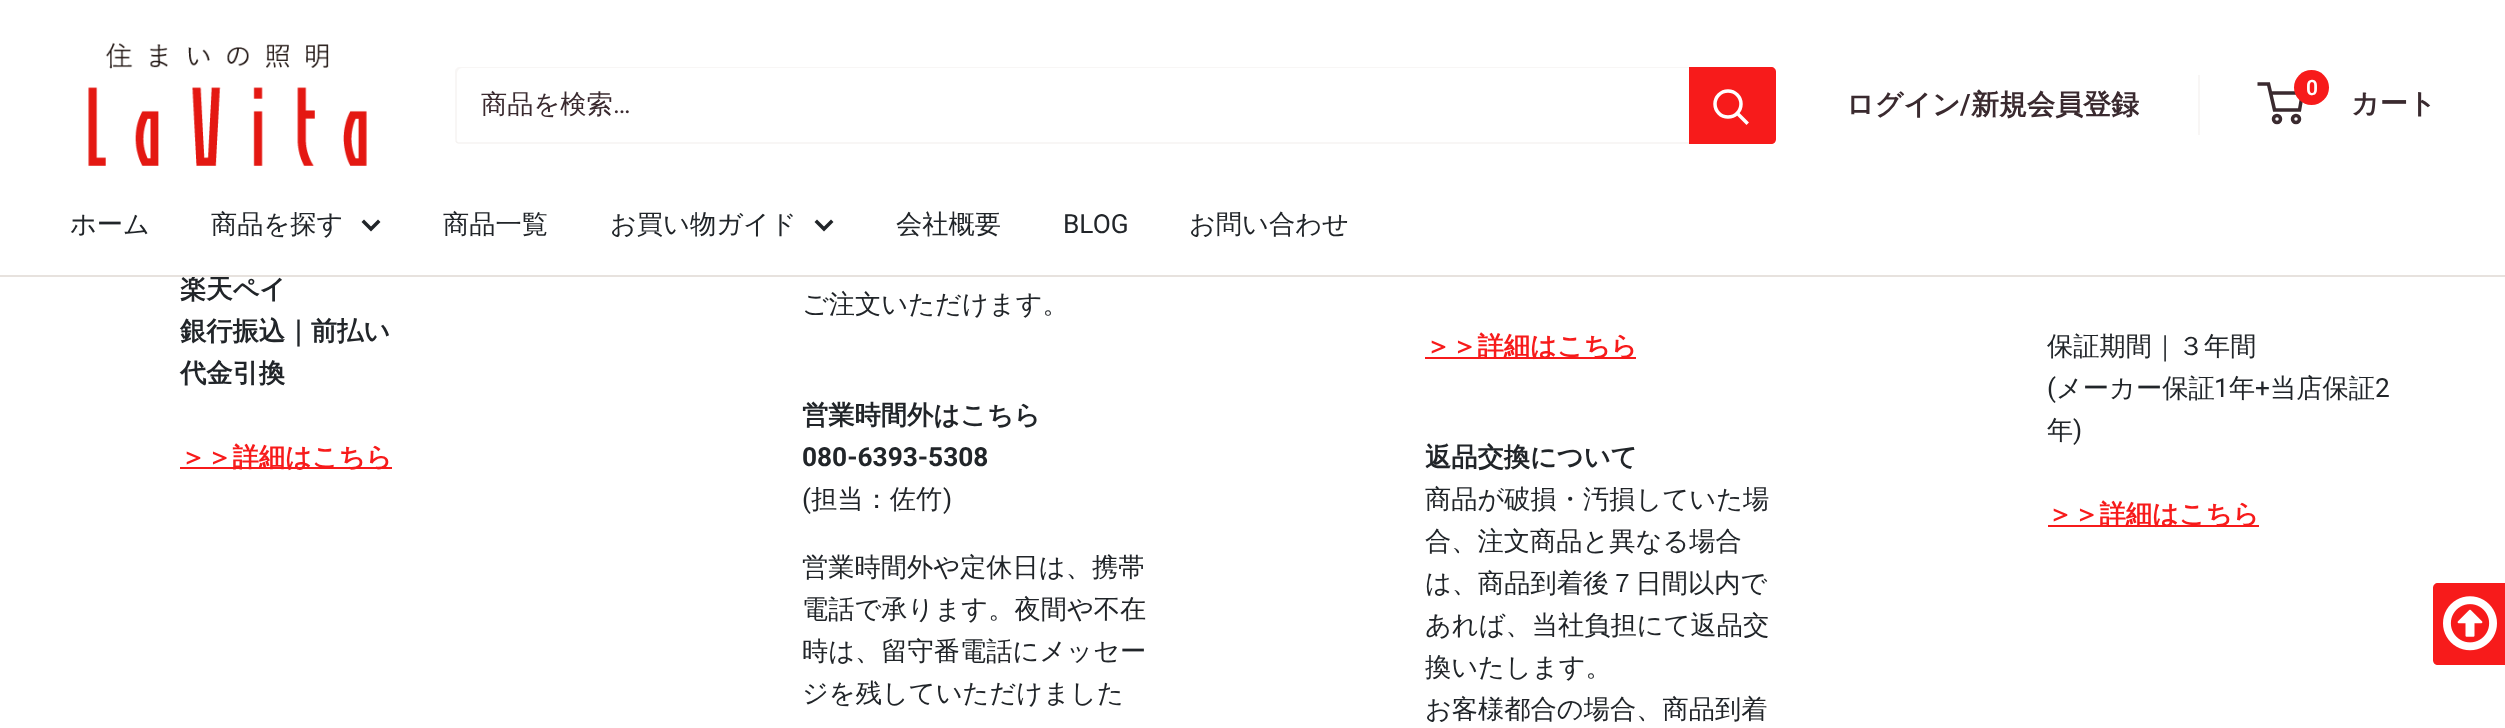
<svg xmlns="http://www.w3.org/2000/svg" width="2505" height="728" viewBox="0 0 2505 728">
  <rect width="100%" height="100%" fill="#ffffff"/>
  <image x="88" y="42" width="279" height="124" href="img1.png"/>
  <path d="M455 141C456 143 458 144 460 144H1771C1774 144 1776 142 1776 139V72C1776 70 1775 69 1774 68V70V136C1774 139 1772 142 1769 142H458C457 142 456 141 455 141Z" fill="#f8f6f5"/>
  <path d="M462 68H1774C1773 67 1772 67 1771 67H460C457 67 455 69 455 72V139C455 141 456 143 459 144C458 143 457 142 457 140V74C457 71 459 68 462 68Z" fill="#e9e2dd" fill-opacity="0.3"/>
  <text x="481" y="113" font-family="WenQuanYi Zen Hei" font-size="26.25" font-weight="500" fill="#3a2a2f">商品を検索</text>
  <text x="613" y="113" font-family="Roboto" font-size="26.25" fill="#3a2a2f">…</text>
  <path d="M1689 67H1771C1774 67 1776 69 1776 72V139C1776 142 1774 144 1771 144H1689Z" fill="#f71b1b"/>
  <path d="M1746.5 122.5L1738 114" fill="none" stroke="#ffffff" stroke-width="3.5" stroke-linecap="square"/>
  <circle cx="1728" cy="104" r="13" fill="none" stroke="#ffffff" stroke-width="3.5"/>
  <text x="1846" y="114" font-family="WenQuanYi Zen Hei" font-size="28" font-weight="bold" fill="#3a2a2f">ログイン</text>
  <text x="1960" y="114" font-family="Roboto" font-size="28" font-weight="600" fill="#3a2a2f">/</text>
  <text x="1971" y="114" font-family="WenQuanYi Zen Hei" font-size="28" font-weight="bold" fill="#3a2a2f">新規会員登録</text>
  <rect x="2198" y="75" width="2" height="60" fill="#f8f6f5"/>
  <circle cx="2277" cy="119" r="3.5" fill="none" stroke="#3a2a2f" stroke-width="3.5"/>
  <circle cx="2296" cy="119" r="3.5" fill="none" stroke="#3a2a2f" stroke-width="3.5"/>
  <path d="M2270.5 93H2302.5L2299.5 110H2274.5L2268.5 84H2257.5" fill="none" stroke="#3a2a2f" stroke-width="3.5"/>
  <circle cx="2311.5" cy="87.5" r="17.5" fill="#f71b1b"/>
  <text x="2306" y="95" font-family="Roboto" font-size="21" font-weight="600" fill="#ffffff">0</text>
  <text x="2351" y="113" font-family="WenQuanYi Zen Hei" font-size="28" font-weight="bold" fill="#3a2a2f">カート</text>
  <text x="180" y="298" font-family="WenQuanYi Zen Hei" font-size="26.25" font-weight="bold" fill="#212529">楽天ペイ</text>
  <rect x="0" y="275" width="2505" height="2" fill="#e7e2de"/>
  <text x="70" y="233" font-family="WenQuanYi Zen Hei" font-size="26.25" font-weight="500" fill="#212529">ホーム</text>
  <text x="211" y="233" font-family="WenQuanYi Zen Hei" font-size="26.25" font-weight="500" fill="#212529">商品を探す</text>
  <path d="M378 222L371 229L364 222" fill="none" stroke="#212529" stroke-width="3.5" stroke-linecap="square"/>
  <text x="443" y="233" font-family="WenQuanYi Zen Hei" font-size="26.25" font-weight="500" fill="#212529">商品一覧</text>
  <text x="610" y="233" font-family="WenQuanYi Zen Hei" font-size="26.25" font-weight="500" fill="#212529">お買い物ガイド</text>
  <path d="M831 222L824 229L817 222" fill="none" stroke="#212529" stroke-width="3.5" stroke-linecap="square"/>
  <text x="896" y="233" font-family="WenQuanYi Zen Hei" font-size="26.25" font-weight="500" fill="#212529">会社概要</text>
  <text x="1063" y="233" font-family="Roboto" font-size="26.25" fill="#212529">BLOG</text>
  <text x="1189" y="233" font-family="WenQuanYi Zen Hei" font-size="26.25" font-weight="500" fill="#212529">お問い合わせ</text>
  <text x="180" y="340" font-family="WenQuanYi Zen Hei" font-size="26.25" font-weight="bold" fill="#212529">銀行振込｜前払い</text>
  <text x="180" y="382" font-family="WenQuanYi Zen Hei" font-size="26.25" font-weight="bold" fill="#212529">代金引換</text>
  <rect x="180" y="467" width="212" height="2" fill="#f71b1b"/>
  <text x="180" y="466" font-family="WenQuanYi Zen Hei" font-size="26.25" font-weight="bold" fill="#f71b1b">＞＞詳細はこちら</text>
  <text x="802" y="313" font-family="WenQuanYi Zen Hei" font-size="26.25" font-weight="500" fill="#212529">ご注文いただけます。</text>
  <text x="802" y="424" font-family="WenQuanYi Zen Hei" font-size="26.25" font-weight="bold" fill="#212529">営業時間外はこちら</text>
  <text x="802" y="466" font-family="Roboto" font-size="26.25" font-weight="bold" fill="#212529">080-6393-5308</text>
  <text x="802" y="508" font-family="Roboto" font-size="26.25" fill="#212529">(</text>
  <text x="811" y="508" font-family="WenQuanYi Zen Hei" font-size="26.25" font-weight="500" fill="#212529">担当：佐竹</text>
  <text x="943" y="508" font-family="Roboto" font-size="26.25" fill="#212529">)</text>
  <text x="802" y="576" font-family="WenQuanYi Zen Hei" font-size="26.25" font-weight="500" fill="#212529">営業時間外や定休日は、携帯</text>
  <text x="802" y="618" font-family="WenQuanYi Zen Hei" font-size="26.25" font-weight="500" fill="#212529">電話で承ります。夜間や不在</text>
  <text x="802" y="660" font-family="WenQuanYi Zen Hei" font-size="26.25" font-weight="500" fill="#212529">時は、留守番電話にメッセー</text>
  <text x="802" y="702" font-family="WenQuanYi Zen Hei" font-size="26.25" font-weight="500" fill="#212529">ジを残していただけました</text>
  <rect x="1425" y="357" width="211" height="2" fill="#f71b1b"/>
  <text x="1425" y="355" font-family="WenQuanYi Zen Hei" font-size="26.25" font-weight="bold" fill="#f71b1b">＞＞詳細はこちら</text>
  <text x="1425" y="466" font-family="WenQuanYi Zen Hei" font-size="26.25" font-weight="bold" fill="#212529">返品交換について</text>
  <text x="1425" y="508" font-family="WenQuanYi Zen Hei" font-size="26.25" font-weight="500" fill="#212529">商品が破損・汚損していた場</text>
  <text x="1425" y="550" font-family="WenQuanYi Zen Hei" font-size="26.25" font-weight="500" fill="#212529">合、注文商品と異なる場合</text>
  <text x="1425" y="592" font-family="WenQuanYi Zen Hei" font-size="26.25" font-weight="500" fill="#212529">は、商品到着後７日間以内で</text>
  <text x="1425" y="634" font-family="WenQuanYi Zen Hei" font-size="26.25" font-weight="500" fill="#212529">あれば、当社負担にて返品交</text>
  <text x="1425" y="676" font-family="WenQuanYi Zen Hei" font-size="26.25" font-weight="500" fill="#212529">換いたします。</text>
  <text x="1425" y="718" font-family="WenQuanYi Zen Hei" font-size="26.25" font-weight="500" fill="#212529">お客様都合の場合、商品到着</text>
  <text x="2047" y="355" font-family="WenQuanYi Zen Hei" font-size="26.25" font-weight="500" fill="#212529">保証期間｜３年間</text>
  <text x="2047" y="397" font-family="Roboto" font-size="26.25" fill="#212529">(</text>
  <text x="2056" y="397" font-family="WenQuanYi Zen Hei" font-size="26.25" font-weight="500" fill="#212529">メーカー保証</text>
  <text x="2214" y="397" font-family="Roboto" font-size="26.25" fill="#212529">1</text>
  <text x="2229" y="397" font-family="WenQuanYi Zen Hei" font-size="26.25" font-weight="500" fill="#212529">年</text>
  <text x="2255" y="397" font-family="Roboto" font-size="26.25" fill="#212529">+</text>
  <text x="2270" y="397" font-family="WenQuanYi Zen Hei" font-size="26.25" font-weight="500" fill="#212529">当店保証</text>
  <text x="2375" y="397" font-family="Roboto" font-size="26.25" fill="#212529">2</text>
  <text x="2047" y="439" font-family="WenQuanYi Zen Hei" font-size="26.25" font-weight="500" fill="#212529">年</text>
  <text x="2073" y="439" font-family="Roboto" font-size="26.25" fill="#212529">)</text>
  <rect x="2048" y="525" width="211" height="2" fill="#f71b1b"/>
  <text x="2047" y="523" font-family="WenQuanYi Zen Hei" font-size="26.25" font-weight="bold" fill="#f71b1b">＞＞詳細はこちら</text>
  <path d="M2438 583H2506V665H2438C2435 665 2433 663 2433 660V588C2433 585 2435 583 2438 583Z" fill="#f71b1b"/>
  <image x="2443" y="596" width="54" height="55" href="img2.png"/>
</svg>
